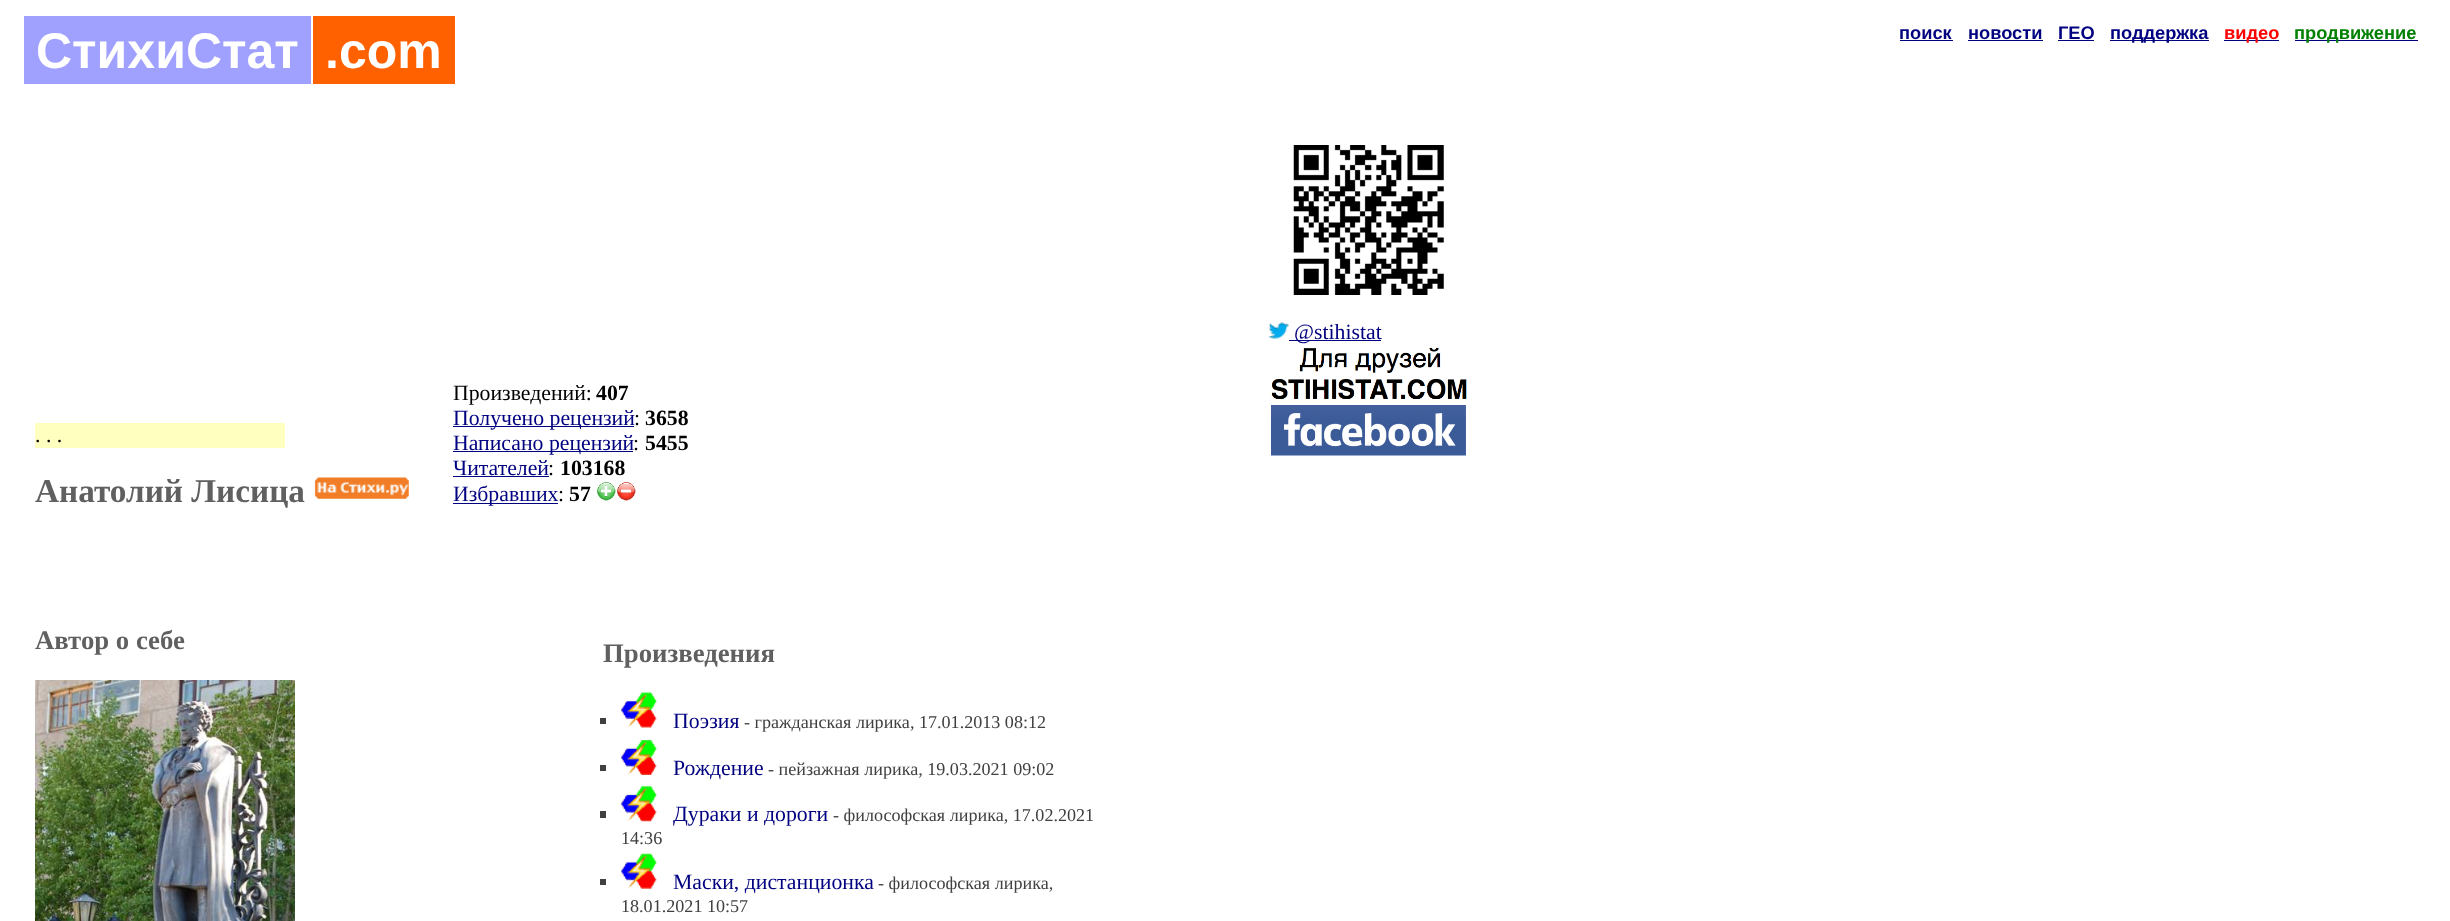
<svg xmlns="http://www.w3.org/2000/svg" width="2450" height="921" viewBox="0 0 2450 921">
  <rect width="100%" height="100%" fill="#ffffff"/>
  <rect x="24" y="16" width="287" height="68" fill="#a0a0ff"/>
  <text x="36" y="68" font-family="Liberation Sans" font-size="50" font-weight="bold" fill="#ffffff">СтихиСтат</text>
  <rect x="313" y="16" width="142" height="68" fill="#ff6000"/>
  <text x="325" y="68" font-family="Liberation Sans" font-size="50" font-weight="bold" fill="#ffffff">.com</text>
  <text x="1899" y="39" font-family="Liberation Sans" font-size="18.25" font-weight="bold" fill="#000080">поиск</text>
  <rect x="1900" y="40" width="53" height="1" fill="#000080"/>
  <text x="1968" y="39" font-family="Liberation Sans" font-size="18.25" font-weight="bold" fill="#000080">новости</text>
  <rect x="1968" y="40" width="75" height="1" fill="#000080"/>
  <text x="2058" y="39" font-family="Liberation Sans" font-size="18.25" font-weight="bold" fill="#000080">ГЕО</text>
  <rect x="2058" y="40" width="36" height="1" fill="#000080"/>
  <rect x="2110" y="40" width="99" height="1" fill="#000080"/>
  <text x="2110" y="39" font-family="Liberation Sans" font-size="18.25" font-weight="bold" fill="#000080">поддержка</text>
  <rect x="2224" y="40" width="55" height="1" fill="#000080"/>
  <text x="2224" y="39" font-family="Liberation Sans" font-size="18.25" font-weight="bold" fill="#ff0000">видео</text>
  <rect x="2295" y="40" width="123" height="1" fill="#000080"/>
  <text x="2294" y="39" font-family="Liberation Sans" font-size="18.25" font-weight="bold" fill="#008000">продвижение</text>
  <image x="1293" y="145" width="151" height="150" href="img1.png"/>
  <image x="1268" y="322" width="21" height="17" href="img2.png"/>
  <rect x="1289" y="340" width="92" height="1" fill="#000080"/>
  <text x="1294" y="339" font-family="Liberation Serif" font-size="21.75" fill="#000080">@stihistat</text>
  <image x="1271" y="347" width="196" height="109" href="img3.png"/>
  <rect x="35" y="423" width="250" height="25" fill="#ffffc0"/>
  <text x="35" y="442" font-family="Liberation Serif" font-size="21.75" fill="#000000">. . .</text>
  <text x="35" y="502" font-family="Liberation Serif" font-size="33.25" font-weight="bold" fill="#606060">Анатолий Лисица</text>
  <image x="314" y="477" width="95" height="22" href="img4.png"/>
  <text x="453" y="400" font-family="Liberation Serif" font-size="21.75" fill="#000000">Произведений:</text>
  <text x="596" y="400" font-family="Liberation Serif" font-size="21.75" font-weight="bold" fill="#000000">407</text>
  <rect x="453" y="426" width="181" height="1" fill="#000080"/>
  <text x="453" y="425" font-family="Liberation Serif" font-size="21.75" fill="#000080">Получено рецензий</text>
  <text x="634" y="425" font-family="Liberation Serif" font-size="21.75" fill="#000000">:</text>
  <text x="645" y="425" font-family="Liberation Serif" font-size="21.75" font-weight="bold" fill="#000000">3658</text>
  <rect x="453" y="451" width="180" height="1" fill="#000080"/>
  <text x="453" y="450" font-family="Liberation Serif" font-size="21.75" fill="#000080">Написано рецензий</text>
  <text x="633" y="450" font-family="Liberation Serif" font-size="21.75" fill="#000000">:</text>
  <text x="645" y="450" font-family="Liberation Serif" font-size="21.75" font-weight="bold" fill="#000000">5455</text>
  <text x="453" y="475" font-family="Liberation Serif" font-size="21.75" fill="#000080">Читателей</text>
  <rect x="453" y="476" width="96" height="1" fill="#000080"/>
  <text x="548" y="475" font-family="Liberation Serif" font-size="21.75" fill="#000000">:</text>
  <text x="560" y="475" font-family="Liberation Serif" font-size="21.75" font-weight="bold" fill="#000000">103168</text>
  <rect x="453" y="503" width="105" height="1" fill="#000080"/>
  <text x="453" y="501" font-family="Liberation Serif" font-size="21.75" fill="#000080">Избравших</text>
  <text x="558" y="501" font-family="Liberation Serif" font-size="21.75" fill="#000000">:</text>
  <text x="569" y="501" font-family="Liberation Serif" font-size="21.75" font-weight="bold" fill="#000000">57</text>
  <image x="597" y="482" width="19" height="19" href="img5.png"/>
  <image x="617" y="482" width="19" height="19" href="img6.png"/>
  <text x="35" y="649" font-family="Liberation Serif" font-size="26.75" font-weight="bold" fill="#606060">Автор о себе</text>
  <image x="35" y="680" width="260" height="241" href="img7.png"/>
  <text x="603" y="662" font-family="Liberation Serif" font-size="26.75" font-weight="bold" fill="#606060">Произведения</text>
  <rect x="600" y="718" width="6" height="6" fill="#404040"/>
  <image x="621" y="692" width="36" height="36" href="img8.png"/>
  <text x="673" y="728" font-family="Liberation Serif" font-size="21.75" fill="#000080">Поэзия</text>
  <text x="744" y="728" font-family="Liberation Serif" font-size="18.1" fill="#404040">- гражданская лирика, 17.01.2013 08:12</text>
  <rect x="600" y="765" width="6" height="6" fill="#404040"/>
  <image x="621" y="740" width="36" height="35" href="img9.png"/>
  <text x="673" y="775" font-family="Liberation Serif" font-size="21.75" fill="#000080">Рождение</text>
  <text x="768" y="775" font-family="Liberation Serif" font-size="18.1" fill="#404040">- пейзажная лирика, 19.03.2021 09:02</text>
  <rect x="600" y="811" width="6" height="7" fill="#404040"/>
  <image x="621" y="786" width="36" height="36" href="img10.png"/>
  <text x="673" y="821" font-family="Liberation Serif" font-size="21.75" fill="#000080">Дураки и дороги</text>
  <text x="833" y="821" font-family="Liberation Serif" font-size="18.1" fill="#404040">- философская лирика, 17.02.2021</text>
  <text x="621" y="844" font-family="Liberation Serif" font-size="18.1" fill="#404040">14:36</text>
  <rect x="600" y="879" width="6" height="6" fill="#404040"/>
  <image x="621" y="853" width="36" height="36" href="img11.png"/>
  <text x="673" y="889" font-family="Liberation Serif" font-size="21.75" fill="#000080">Маски, дистанционка</text>
  <text x="878" y="889" font-family="Liberation Serif" font-size="18.1" fill="#404040">- философская лирика,</text>
  <text x="621" y="912" font-family="Liberation Serif" font-size="18.1" fill="#404040">18.01.2021 10:57</text>
</svg>
